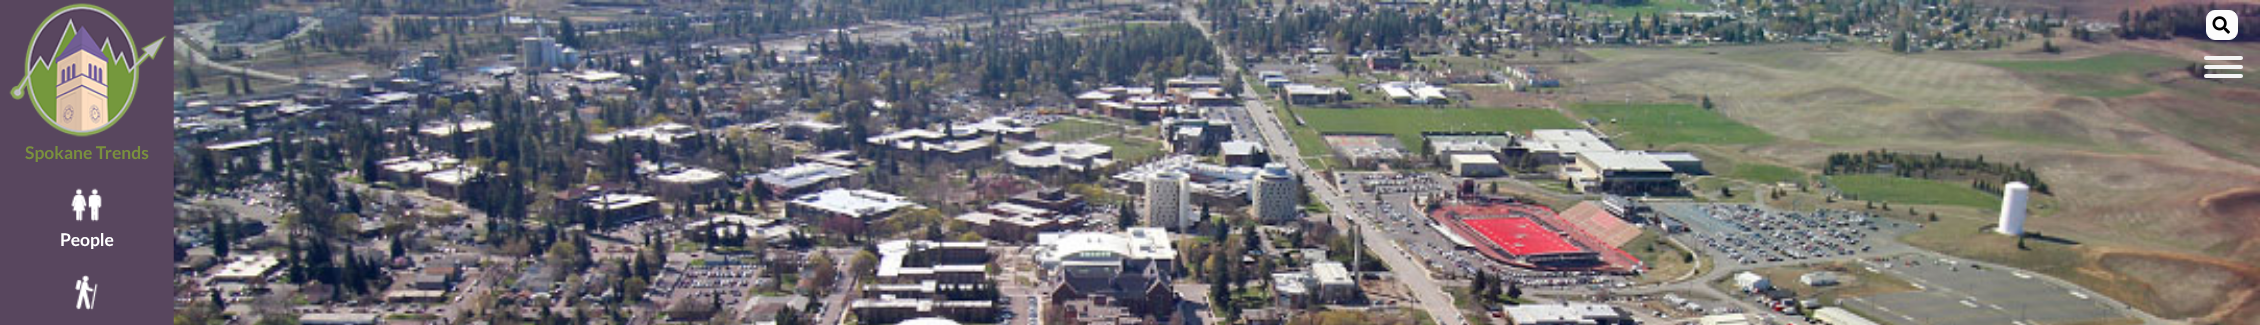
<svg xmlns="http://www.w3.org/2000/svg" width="2260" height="325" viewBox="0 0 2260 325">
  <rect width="100%" height="100%" fill="#58465e"/>
  <image x="9" y="3" width="158" height="134" href="img1.png"/>
  <text x="25" y="159" font-family="Lato" font-size="17.5" font-weight="bold" fill="#7a903e">Spokane Trends</text>
  <image x="71" y="188" width="31" height="34" href="img2.png"/>
  <text x="60" y="246" font-family="Lato" font-size="17.5" font-weight="bold" fill="#ffffff">People</text>
  <image x="74" y="275" width="24" height="36" href="img3.png"/>
  <image x="173" y="0" width="2087" height="325" href="img4.png"/>
  <rect x="2206.5" y="10.5" width="31" height="29" rx="8.5" fill="#fcfcfc" stroke="#fcfcfc"/>
  <image x="2212" y="16" width="18" height="18" href="img5.png"/>
  <rect x="2204" y="65" width="39" height="4" rx="2" fill="#f4f4f4"/>
  <rect x="2204" y="56" width="39" height="4" rx="2" fill="#f4f4f4"/>
  <rect x="2204" y="74" width="39" height="4" rx="2" fill="#f4f4f4"/>
</svg>
